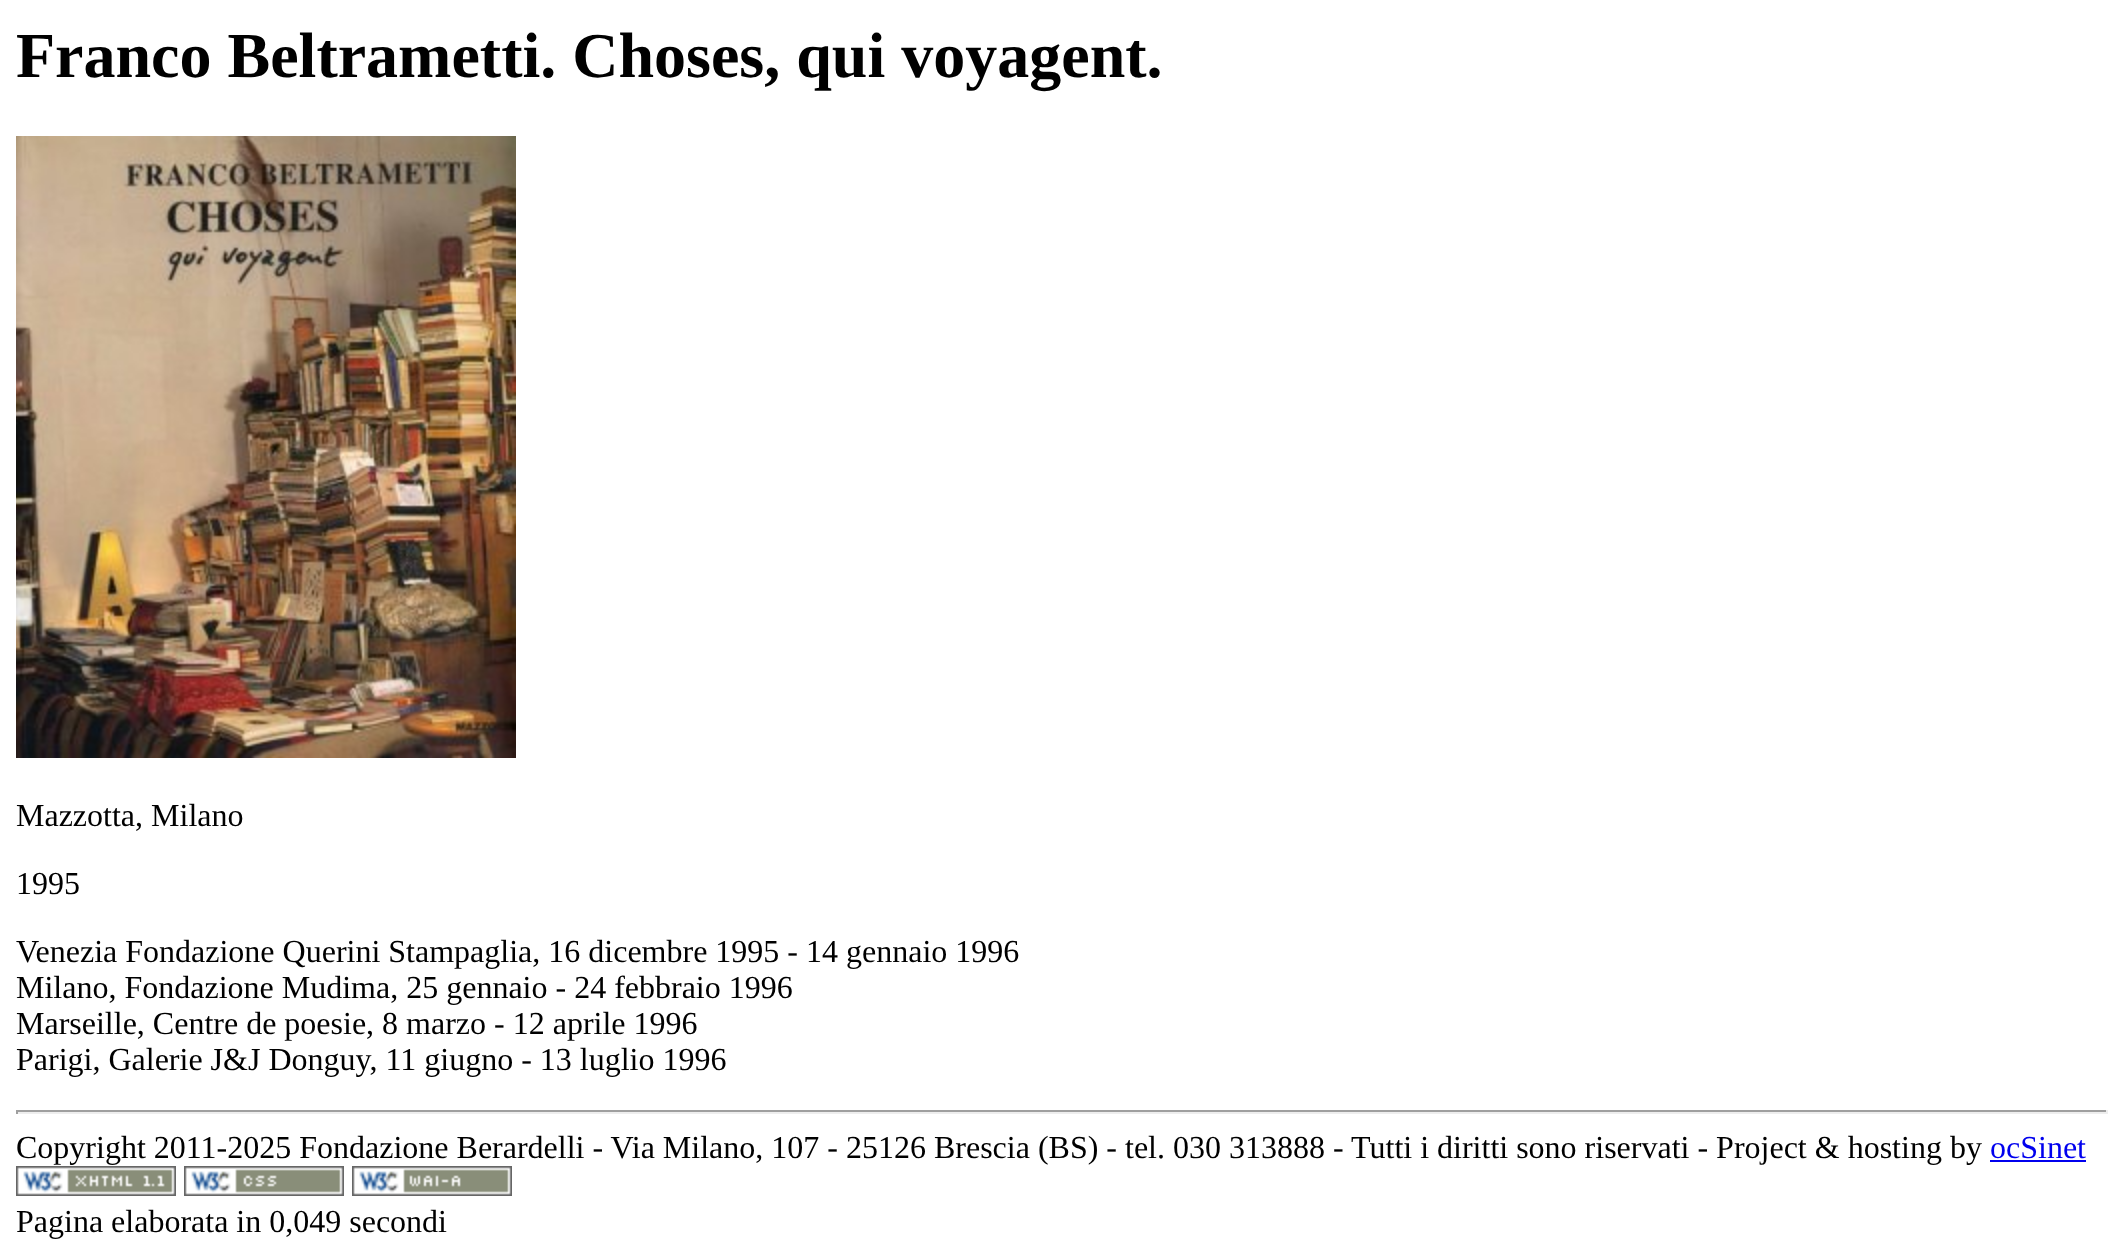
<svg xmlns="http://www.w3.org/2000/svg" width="2123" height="1256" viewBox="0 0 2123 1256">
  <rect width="100%" height="100%" fill="#ffffff"/>
  <text x="16" y="77" font-family="Liberation Serif" font-size="64" font-weight="bold" fill="#000000">Franco Beltrametti. Choses, qui voyagent.</text>
  <image x="16" y="136" width="500" height="622" href="img1.png"/>
  <text x="16" y="826" font-family="Liberation Serif" font-size="32" fill="#000000">Mazzotta, Milano</text>
  <text x="16" y="894" font-family="Liberation Serif" font-size="32" fill="#000000">1995</text>
  <text x="16" y="962" font-family="Liberation Serif" font-size="32" fill="#000000">Venezia Fondazione Querini Stampaglia, 16 dicembre 1995 - 14 gennaio 1996</text>
  <text x="16" y="998" font-family="Liberation Serif" font-size="32" fill="#000000">Milano, Fondazione Mudima, 25 gennaio - 24 febbraio 1996</text>
  <text x="16" y="1034" font-family="Liberation Serif" font-size="32" fill="#000000">Marseille, Centre de poesie, 8 marzo - 12 aprile 1996</text>
  <text x="16" y="1070" font-family="Liberation Serif" font-size="32" fill="#000000">Parigi, Galerie J&amp;J Donguy, 11 giugno - 13 luglio 1996</text>
  <rect x="16" y="1110" width="2092" height="2" fill="#9f9f9f"/>
  <rect x="2106" y="1110" width="2" height="4" fill="#eeeeee"/>
  <rect x="16" y="1112" width="2092" height="2" fill="#eeeeee"/>
  <rect x="16" y="1110" width="2" height="4" fill="#9f9f9f"/>
  <text x="16" y="1158" font-family="Liberation Serif" font-size="32" fill="#000000">Copyright 2011-2025 Fondazione Berardelli - Via Milano, 107 - 25126 Brescia (BS) - tel. 030 313888 - Tutti i diritti sono riservati - Project &amp; hosting by</text>
  <text x="1990" y="1158" font-family="Liberation Serif" font-size="32" fill="#0000ee">ocSinet</text>
  <rect x="1990" y="1160" width="96" height="2" fill="#0000ee"/>
  <image x="16" y="1166" width="160" height="30" href="img2.png"/>
  <image x="184" y="1166" width="160" height="30" href="img3.png"/>
  <image x="352" y="1166" width="160" height="30" href="img4.png"/>
  <text x="16" y="1232" font-family="Liberation Serif" font-size="32" fill="#000000">Pagina elaborata in 0,049 secondi</text>
</svg>
